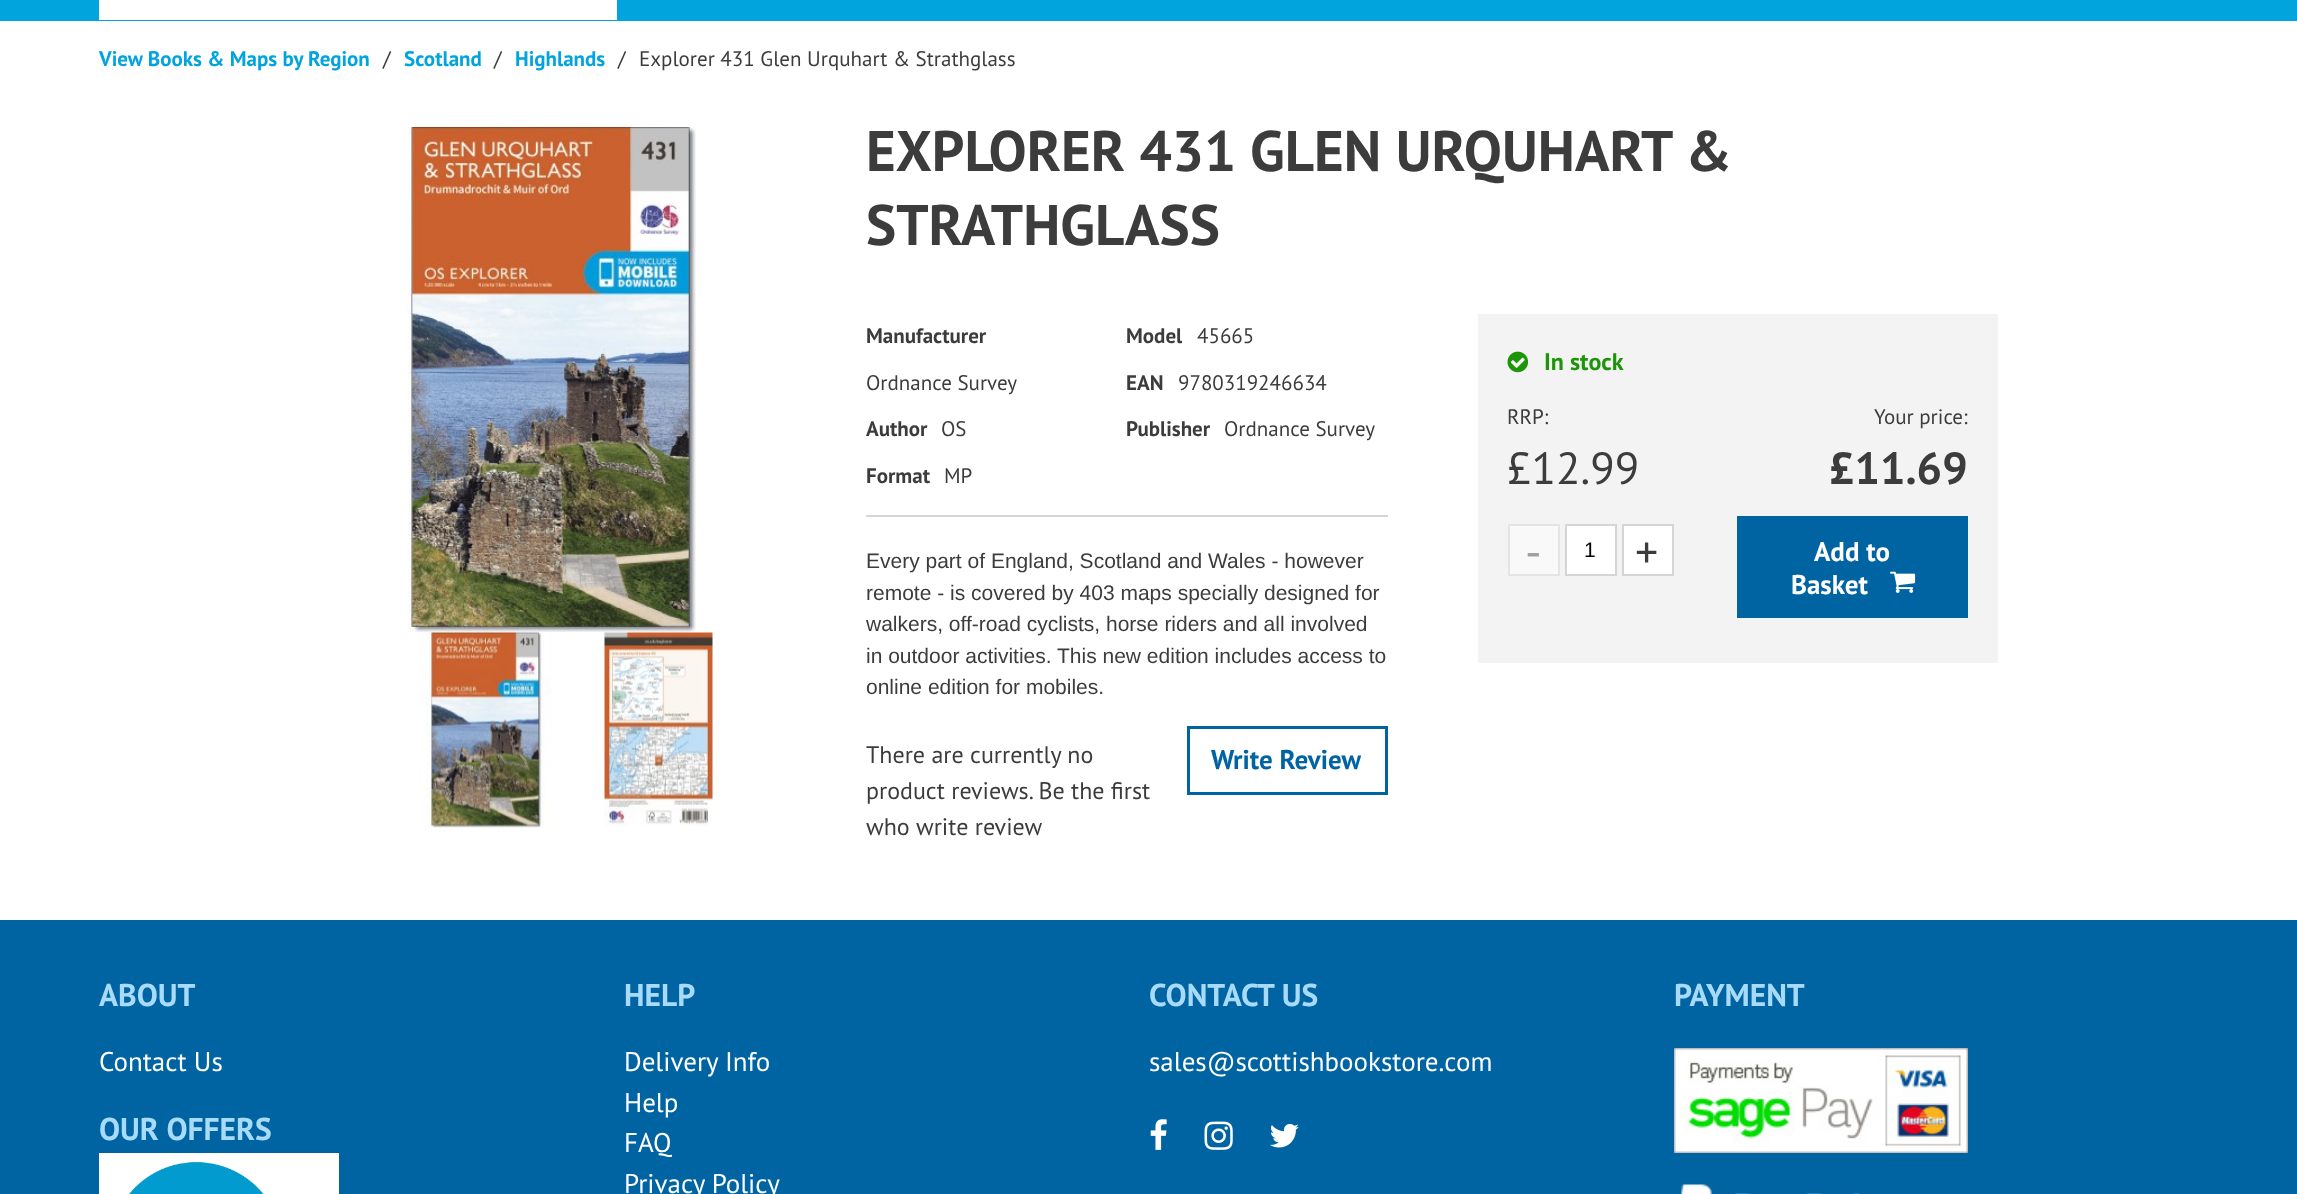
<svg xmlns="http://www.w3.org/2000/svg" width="2297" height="1194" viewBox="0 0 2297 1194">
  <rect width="100%" height="100%" fill="#ffffff"/>
  <rect x="0" y="0" width="2297" height="21" fill="#01a4dd"/>
  <rect x="99" y="0" width="518" height="20" fill="#ffffff"/>
  <text x="99" y="66" font-family="PT Sans" font-size="21" font-weight="bold" fill="#01a4dd">View Books &amp; Maps by Region</text>
  <text x="383" y="66" font-family="PT Sans" font-size="21" fill="#3c3c3c">/</text>
  <text x="404" y="66" font-family="PT Sans" font-size="21" font-weight="bold" fill="#01a4dd">Scotland</text>
  <text x="494" y="66" font-family="PT Sans" font-size="21" fill="#3c3c3c">/</text>
  <text x="515" y="66" font-family="PT Sans" font-size="21" font-weight="bold" fill="#01a4dd">Highlands</text>
  <text x="618" y="66" font-family="PT Sans" font-size="21" fill="#3c3c3c">/</text>
  <text x="639" y="66" font-family="PT Sans" font-size="21" fill="#3c3c3c">Explorer 431 Glen Urquhart &amp; Strathglass</text>
  <image x="407" y="127" width="289" height="505" href="img1.png"/>
  <image x="418" y="632" width="134" height="196" href="img2.png"/>
  <image x="604" y="632" width="109" height="194" href="img3.png"/>
  <text x="866" y="171" font-family="PT Sans" font-size="57" font-weight="bold" fill="#3c3c3c">EXPLORER 431 GLEN URQUHART &amp;</text>
  <text x="866" y="245" font-family="PT Sans" font-size="57" font-weight="bold" fill="#3c3c3c">STRATHGLASS</text>
  <rect x="866" y="515" width="522" height="2" fill="#d5d5d5"/>
  <text x="866" y="343" font-family="PT Sans" font-size="21" font-weight="bold" fill="#3c3c3c">Manufacturer</text>
  <text x="866" y="390" font-family="PT Sans" font-size="21" fill="#3c3c3c">Ordnance Survey</text>
  <text x="1126" y="343" font-family="PT Sans" font-size="21" font-weight="bold" fill="#3c3c3c">Model</text>
  <text x="1197" y="343" font-family="PT Sans" font-size="21" fill="#3c3c3c">45665</text>
  <text x="1126" y="390" font-family="PT Sans" font-size="21" font-weight="bold" fill="#3c3c3c">EAN</text>
  <text x="1178" y="390" font-family="PT Sans" font-size="21" fill="#3c3c3c">9780319246634</text>
  <text x="866" y="436" font-family="PT Sans" font-size="21" font-weight="bold" fill="#3c3c3c">Author</text>
  <text x="941" y="436" font-family="PT Sans" font-size="21" fill="#3c3c3c">OS</text>
  <text x="1126" y="436" font-family="PT Sans" font-size="21" font-weight="bold" fill="#3c3c3c">Publisher</text>
  <text x="1224" y="436" font-family="PT Sans" font-size="21" fill="#3c3c3c">Ordnance Survey</text>
  <text x="866" y="483" font-family="PT Sans" font-size="21" font-weight="bold" fill="#3c3c3c">Format</text>
  <text x="944" y="483" font-family="PT Sans" font-size="21" fill="#3c3c3c">MP</text>
  <text x="866" y="568" font-family="Liberation Sans" font-size="21" fill="#3c3c3c">Every part of England, Scotland and Wales - however</text>
  <text x="866" y="600" font-family="Liberation Sans" font-size="21" fill="#3c3c3c">remote - is covered by 403 maps specially designed for</text>
  <text x="866" y="631" font-family="Liberation Sans" font-size="21" fill="#3c3c3c">walkers, off-road cyclists, horse riders and all involved</text>
  <text x="866" y="663" font-family="Liberation Sans" font-size="21" fill="#3c3c3c">in outdoor activities.</text>
  <text x="1057" y="663" font-family="Liberation Sans" font-size="21" fill="#3c3c3c">This new edition includes access to</text>
  <text x="866" y="694" font-family="Liberation Sans" font-size="21" fill="#3c3c3c">online edition for mobiles.</text>
  <text x="866" y="763" font-family="PT Sans" font-size="24" fill="#3c3c3c">There are currently no</text>
  <text x="866" y="799" font-family="PT Sans" font-size="24" fill="#3c3c3c">product reviews. Be the first</text>
  <text x="866" y="835" font-family="PT Sans" font-size="24" fill="#3c3c3c">who write review</text>
  <rect x="1188.5" y="727.5" width="198" height="66" fill="none" stroke="#0064a2" stroke-width="3"/>
  <text x="1211" y="769" font-family="PT Sans" font-size="27" font-weight="bold" fill="#0064a2">Write Review</text>
  <rect x="1478" y="314" width="520" height="349" fill="#f3f3f3"/>
  <image x="1507" y="351" width="22" height="22" href="img4.png"/>
  <text x="1544" y="370" font-family="PT Sans" font-size="24" font-weight="bold" fill="#1c9508">In stock</text>
  <text x="1507" y="424" font-family="PT Sans" font-size="21" fill="#3c3c3c">RRP:</text>
  <text x="1507" y="484" font-family="PT Sans" font-size="45" fill="#3c3c3c">£12.99</text>
  <text x="1874" y="424" font-family="PT Sans" font-size="21" fill="#3c3c3c">Your price:</text>
  <text x="1829" y="484" font-family="PT Sans" font-size="45" font-weight="bold" fill="#3c3c3c">£11.69</text>
  <rect x="1509" y="525" width="50" height="50" fill="#f9f9f9" stroke="#e4e4e4" stroke-width="2"/>
  <text x="1525" y="568" font-family="PT Sans" font-size="46" fill="#9f9f9f">-</text>
  <rect x="1566" y="525" width="50" height="50" fill="#ffffff" stroke="#d5d5d5" stroke-width="2"/>
  <text x="1584" y="557" font-family="Liberation Sans" font-size="21" fill="#000000">1</text>
  <rect x="1623" y="525" width="50" height="50" fill="#ffffff" stroke="#d5d5d5" stroke-width="2"/>
  <text x="1635" y="568" font-family="PT Sans" font-size="46" fill="#3c3c3c">+</text>
  <rect x="1737" y="516" width="231" height="102" fill="#0064a2"/>
  <text x="1814" y="561" font-family="PT Sans" font-size="27" font-weight="bold" fill="#ffffff">Add to</text>
  <text x="1791" y="594" font-family="PT Sans" font-size="27" font-weight="bold" fill="#ffffff">Basket</text>
  <image x="1890" y="571" width="26" height="22" href="img5.png"/>
  <rect x="0" y="920" width="2297" height="274" fill="#0064a2"/>
  <text x="99" y="1006" font-family="PT Sans" font-size="31.5" font-weight="bold" fill="#a8dbfa">ABOUT</text>
  <text x="99" y="1071" font-family="PT Sans" font-size="27" fill="#ffffff">Contact Us</text>
  <text x="99" y="1140" font-family="PT Sans" font-size="31.5" font-weight="bold" fill="#a8dbfa">OUR OFFERS</text>
  <image x="99" y="1153" width="240" height="41" href="img6.png"/>
  <text x="624" y="1006" font-family="PT Sans" font-size="31.5" font-weight="bold" fill="#a8dbfa">HELP</text>
  <text x="624" y="1071" font-family="PT Sans" font-size="27" fill="#ffffff">Delivery Info</text>
  <text x="624" y="1112" font-family="PT Sans" font-size="27" fill="#ffffff">Help</text>
  <text x="624" y="1152" font-family="PT Sans" font-size="27" fill="#ffffff">FAQ</text>
  <text x="624" y="1193" font-family="PT Sans" font-size="27" fill="#ffffff">Privacy Policy</text>
  <text x="1149" y="1006" font-family="PT Sans" font-size="31.5" font-weight="bold" fill="#a8dbfa">CONTACT US</text>
  <text x="1149" y="1071" font-family="PT Sans" font-size="27" fill="#ffffff">sales@scottishbookstore.com</text>
  <image x="1150" y="1119" width="17" height="31" href="img7.png"/>
  <image x="1204" y="1121" width="29" height="29" href="img8.png"/>
  <image x="1270" y="1123" width="29" height="25" href="img9.png"/>
  <text x="1674" y="1006" font-family="PT Sans" font-size="31.5" font-weight="bold" fill="#a8dbfa">PAYMENT</text>
  <image x="1674" y="1048" width="294" height="105" href="img10.png"/>
  <image x="1680" y="1184" width="180" height="10" href="img11.png"/>
</svg>
